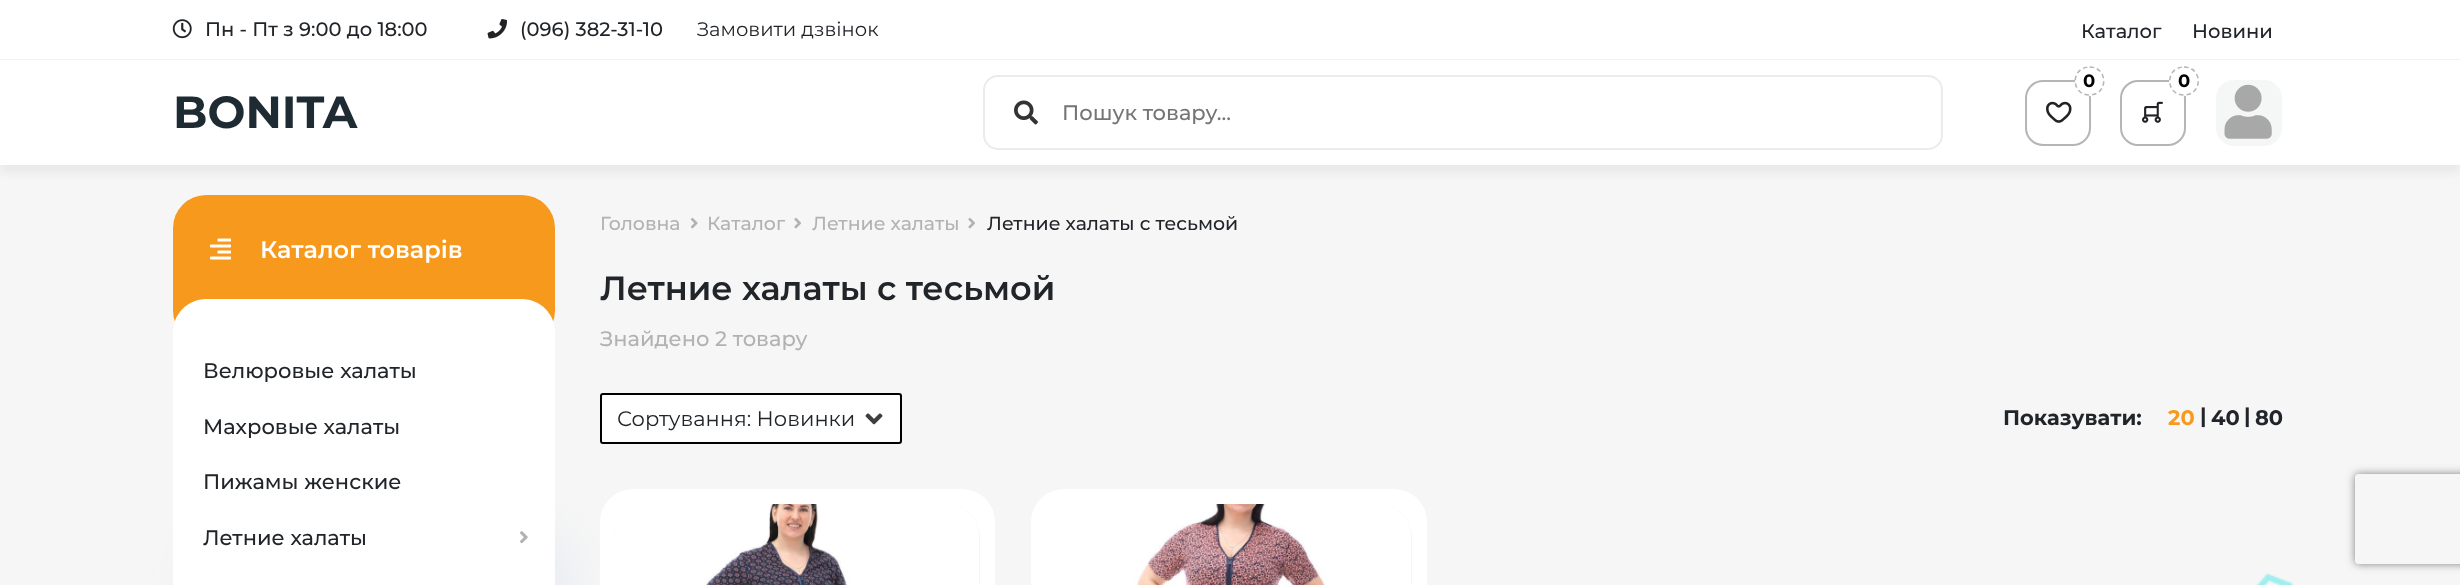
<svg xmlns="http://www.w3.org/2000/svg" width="2460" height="585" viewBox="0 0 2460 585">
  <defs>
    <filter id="blur1" x="-50%" y="-200%" width="200%" height="500%"><feGaussianBlur stdDeviation="4.5"/></filter>
    <filter id="blur2" x="-50%" y="-200%" width="200%" height="500%"><feGaussianBlur stdDeviation="22.5"/></filter>
    <clipPath id="clip1"><path d="M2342 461H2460V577H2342ZM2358 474H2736C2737.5 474 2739 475.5 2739 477V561C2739 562.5 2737.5 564 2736 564H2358C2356.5 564 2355 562.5 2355 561V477C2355 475.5 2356.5 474 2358 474Z" clip-rule="evenodd"/></clipPath>
    <filter id="blur3" x="-50%" y="-200%" width="200%" height="500%"><feGaussianBlur stdDeviation="4"/></filter>
  </defs>
  <rect width="100%" height="100%" fill="#f6f6f6"/>
  <rect x="0" y="0" width="2460" height="59" fill="#ffffff"/>
  <rect x="0" y="59" width="2460" height="1" fill="#f2f2f2"/>
  <image x="172" y="19" width="20" height="20" href="img1.png"/>
  <text x="205" y="36" font-family="Montserrat" font-size="19.5" font-weight="500" fill="#212529">Пн - Пт з 9:00 до 18:00</text>
  <image x="487" y="19" width="20" height="20" href="img2.png"/>
  <text x="520" y="36" font-family="Montserrat" font-size="19.5" font-weight="500" fill="#212529">(096) 382-31-10</text>
  <text x="697" y="36" font-family="Montserrat" font-size="19.5" fill="#212529">Замовити дзвінок</text>
  <text x="2081" y="38" font-family="Montserrat" font-size="19.5" font-weight="500" fill="#212529">Каталог</text>
  <text x="2192" y="38" font-family="Montserrat" font-size="19.5" font-weight="500" fill="#212529">Новини</text>
  <rect x="0" y="68" width="2460" height="105" fill="#000000" fill-opacity="0.05" filter="url(#blur1)"/>
  <rect x="0" y="60" width="2460" height="105" fill="#ffffff"/>
  <rect x="2026" y="81" width="64" height="64" rx="17" fill="none" stroke="#b6b5b5" stroke-width="2"/>
  <circle cx="2090" cy="81" r="15" fill="#ffffff"/>
  <path d="M2089.5 67C2108.5 67 2108.5 95 2089.5 95C2070.5 95 2070.5 67 2089.5 67Z" fill="none" stroke="#b6b5b5" stroke-width="1.5" stroke-dasharray="4.5 3"/>
  <text x="2083" y="87" font-family="Montserrat" font-size="18" font-weight="bold" fill="#000000">0</text>
  <image x="2046" y="101" width="26" height="22" href="img3.png"/>
  <rect x="2121" y="81" width="64" height="64" rx="17" fill="none" stroke="#b6b5b5" stroke-width="2"/>
  <circle cx="2184" cy="81" r="15" fill="#ffffff"/>
  <path d="M2184 67C2203 67 2203 95 2184 95C2165 95 2165 67 2184 67Z" fill="none" stroke="#b6b5b5" stroke-width="1.5" stroke-dasharray="4.5 3"/>
  <text x="2178" y="87" font-family="Montserrat" font-size="18" font-weight="bold" fill="#000000">0</text>
  <image x="2142" y="101" width="21" height="22" href="img4.png"/>
  <rect x="2216" y="80" width="66" height="66" rx="18" fill="#f5f7f7"/>
  <image x="2224" y="84" width="48" height="55" href="img5.png"/>
  <text x="173" y="128" font-family="Montserrat" font-size="45" font-weight="bold" fill="#1e2b33">BONITA</text>
  <rect x="984" y="76" width="958" height="73" rx="14" fill="none" stroke="#ebebeb" stroke-width="2"/>
  <image x="1014" y="100" width="24" height="25" href="img6.png"/>
  <text x="1062" y="120" font-family="Montserrat" font-size="21" font-weight="500" fill="#757575">Пошук товару...</text>
  <image x="2256" y="572" width="37" height="13" href="img7.png"/>
  <rect x="173" y="195" width="382" height="149" rx="33" fill="#f7991d"/>
  <image x="210" y="238" width="21" height="22" href="img8.png"/>
  <text x="260" y="258" font-family="Montserrat" font-size="24" font-weight="600" fill="#ffffff">Каталог товарів</text>
  <rect x="191" y="528" width="382" height="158" rx="33" fill="#e9edf2" filter="url(#blur2)"/>
  <rect x="173" y="563" width="382" height="22" fill="#ffffff"/>
  <path d="M173 344H555V563C555 581 540 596 522 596H206C188 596 173 581 173 563Z" fill="#ffffff"/>
  <path d="M206 299H522C540 299 555 314 555 332V344H173V332C173 314 188 299 206 299Z" fill="#ffffff"/>
  <text x="203" y="378" font-family="Montserrat" font-size="21" font-weight="500" fill="#212529">Велюровые халаты</text>
  <text x="203" y="434" font-family="Montserrat" font-size="21" font-weight="500" fill="#212529">Махровые халаты</text>
  <text x="203" y="489" font-family="Montserrat" font-size="21" font-weight="500" fill="#212529">Пижамы женские</text>
  <text x="203" y="545" font-family="Montserrat" font-size="21" font-weight="500" fill="#212529">Летние халаты</text>
  <image x="520" y="531" width="8" height="13" href="img9.png"/>
  <text x="600" y="230" font-family="Montserrat" font-size="18.9" font-weight="500" fill="#b3b2b2">Головна</text>
  <image x="690" y="217" width="8" height="12" href="img10.png"/>
  <text x="707" y="230" font-family="Montserrat" font-size="18.9" font-weight="500" fill="#b3b2b2">Каталог</text>
  <image x="794" y="217" width="7" height="12" href="img11.png"/>
  <text x="812" y="230" font-family="Montserrat" font-size="18.9" font-weight="500" fill="#b3b2b2">Летние халаты</text>
  <image x="968" y="217" width="7" height="12" href="img11.png"/>
  <text x="987" y="230" font-family="Montserrat" font-size="18.9" font-weight="500" fill="#212529">Летние халаты с тесьмой</text>
  <text x="600" y="300" font-family="Montserrat" font-size="33.6" font-weight="600" fill="#212529">Летние халаты с тесьмой</text>
  <text x="600" y="346" font-family="Montserrat" font-size="21" font-weight="500" fill="#b3b2b2">Знайдено 2 товару</text>
  <rect x="601" y="394" width="300" height="49" rx="2" fill="#ffffff" stroke="#000000" stroke-width="2"/>
  <text x="617" y="426" font-family="Montserrat" font-size="21" fill="#212529">Сортування: Новинки</text>
  <image x="865" y="413" width="18" height="12" href="img12.png"/>
  <text x="2003" y="425" font-family="Montserrat" font-size="21" font-weight="bold" fill="#212529">Показувати:</text>
  <text x="2168" y="425" font-family="Montserrat" font-size="21" font-weight="bold" fill="#f7991d">20</text>
  <text x="2200" y="423" font-family="Montserrat" font-size="21" font-weight="bold" fill="#212529">|</text>
  <text x="2211" y="425" font-family="Montserrat" font-size="21" font-weight="bold" fill="#212529">40</text>
  <text x="2244" y="423" font-family="Montserrat" font-size="21" font-weight="bold" fill="#212529">|</text>
  <text x="2255" y="425" font-family="Montserrat" font-size="21" font-weight="bold" fill="#212529">80</text>
  <rect x="600" y="489" width="395" height="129" rx="33" fill="#ffffff"/>
  <rect x="615" y="504" width="365" height="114" rx="33" fill="#f6f6f6"/>
  <image x="615" y="504" width="364" height="81" href="img13.png"/>
  <rect x="1031" y="489" width="396" height="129" rx="33" fill="#ffffff"/>
  <rect x="1046" y="504" width="366" height="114" rx="33" fill="#f6f6f6"/>
  <image x="1046" y="504" width="365" height="81" href="img14.png"/>
  <g clip-path="url(#clip1)">
    <rect x="2355" y="474" width="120" height="90" rx="3" fill="#808080" filter="url(#blur3)"/>
  </g>
</svg>
